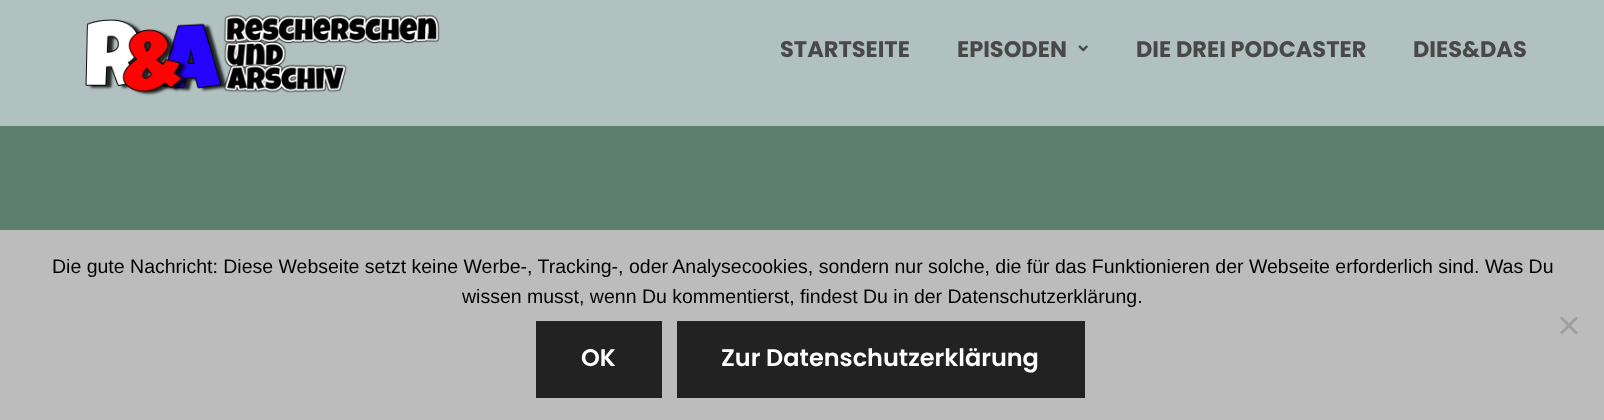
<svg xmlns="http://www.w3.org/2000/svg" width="1604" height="420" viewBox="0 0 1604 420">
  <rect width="100%" height="100%" fill="#5e7f6b"/>
  <rect x="0" y="0" width="1604" height="126" fill="#b1c1c0"/>
  <image x="85" y="14" width="355" height="82" href="img1.png"/>
  <text x="780" y="57" font-family="Poppins" font-size="22.5" font-weight="bold" fill="#484848">STARTSEITE</text>
  <text x="957" y="57" font-family="Poppins" font-size="22.5" font-weight="bold" fill="#484848">EPISODEN</text>
  <image x="1078" y="45" width="10" height="7" href="img2.png"/>
  <text x="1136" y="57" font-family="Poppins" font-size="22.5" font-weight="bold" fill="#484848">DIE DREI PODCASTER</text>
  <text x="1413" y="57" font-family="Poppins" font-size="22.5" font-weight="bold" fill="#484848">DIES&amp;DAS</text>
  <rect x="0" y="230" width="1604" height="190" fill="#bcbcbc"/>
  <text x="52" y="273" font-family="Liberation Sans" font-size="19.5" fill="#000000">Die gute Nachricht: Diese Webseite setzt keine Werbe-, Tracking-, oder Analysecookies, sondern nur solche, die für das Funktionieren der Webseite erforderlich sind. Was Du</text>
  <text x="462" y="303" font-family="Liberation Sans" font-size="19.5" fill="#000000">wissen musst, wenn Du kommentierst, findest Du in der Datenschutzerklärung.</text>
  <path d="M1576 316.5L1578 318.5L1562 334.5L1560 332.5Z" fill="#9e9e9e"/>
  <path d="M1560 318.5L1562 316.5L1578 332.5L1576 334.5Z" fill="#9e9e9e"/>
  <rect x="536" y="321" width="126" height="77" fill="#222222"/>
  <text x="581" y="366" font-family="Poppins" font-size="24" font-weight="600" fill="#ffffff">OK</text>
  <rect x="677" y="321" width="408" height="77" fill="#222222"/>
  <text x="721" y="366" font-family="Poppins" font-size="24" font-weight="600" fill="#ffffff">Zur Datenschutzerklärung</text>
</svg>
